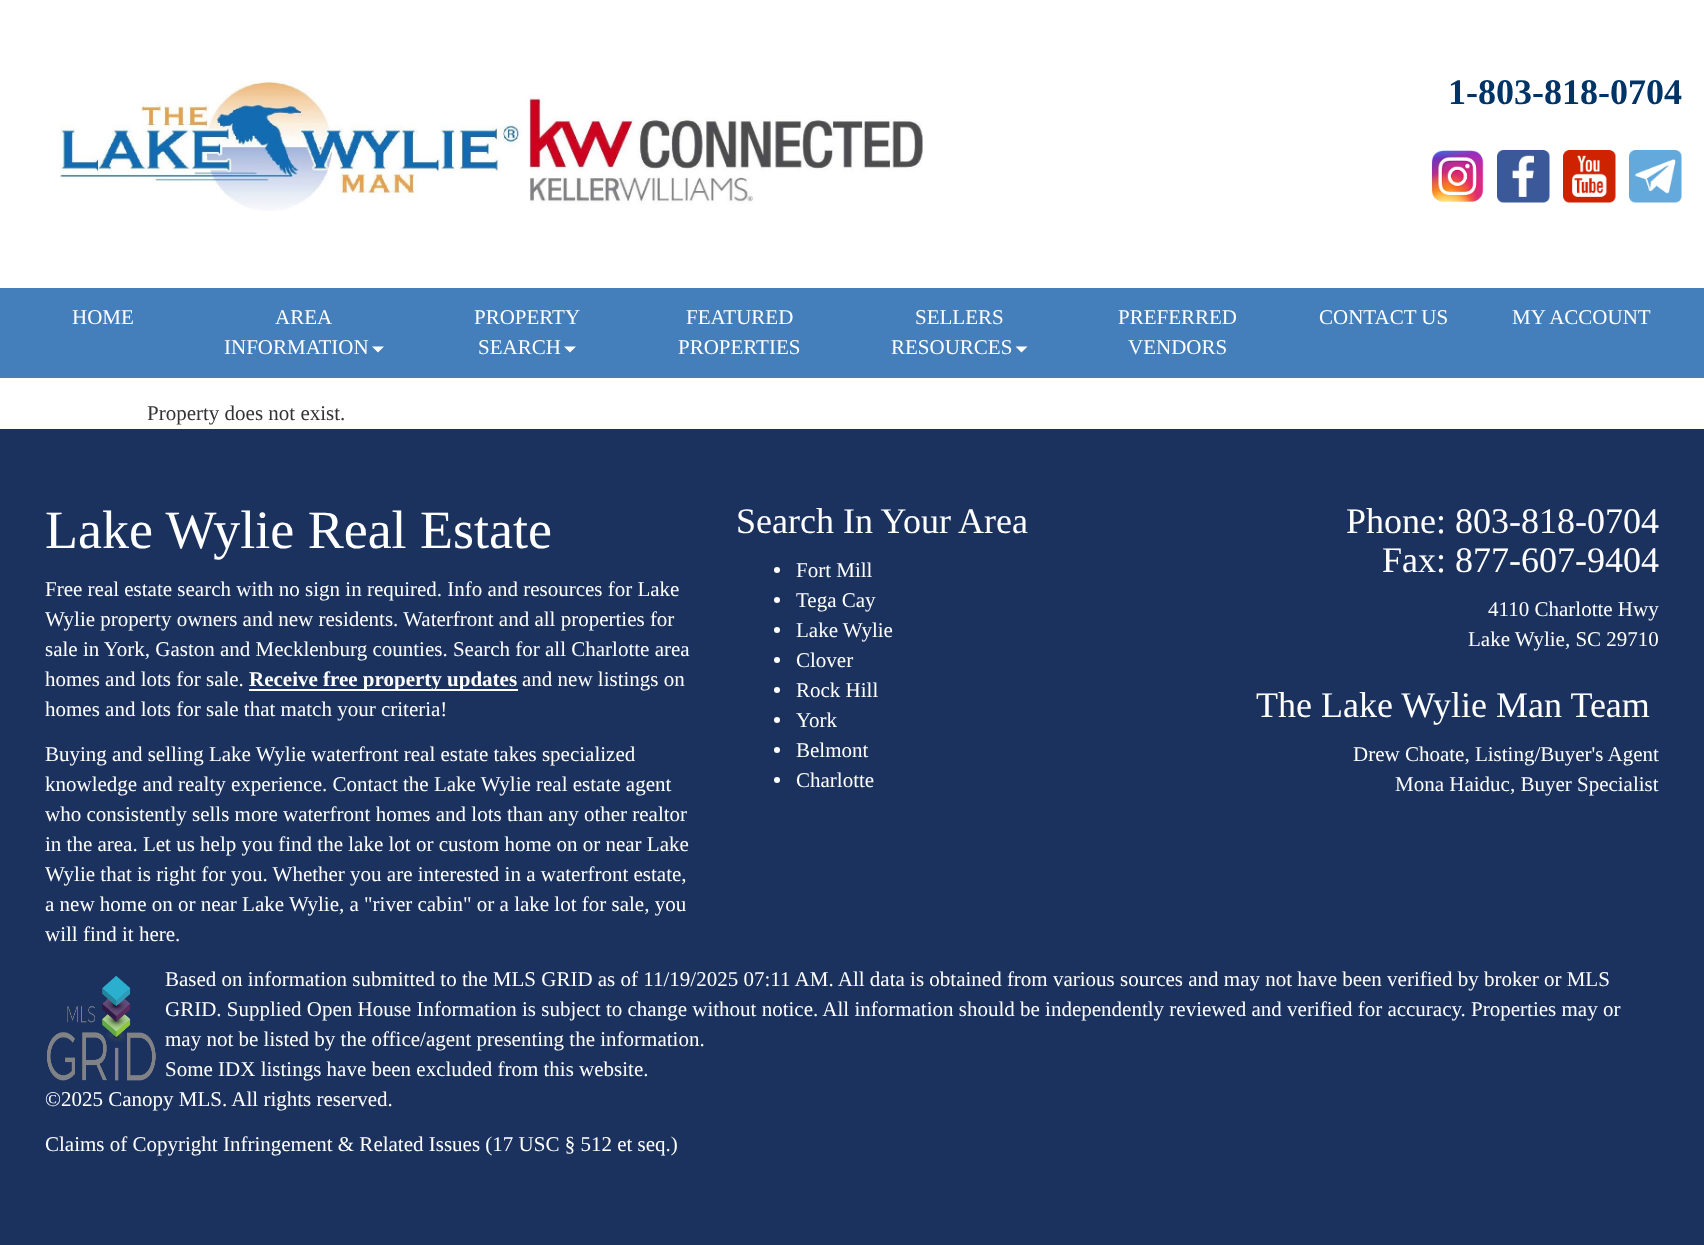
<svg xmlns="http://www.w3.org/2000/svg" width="1704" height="1245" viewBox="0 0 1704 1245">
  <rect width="100%" height="100%" fill="#1b325e"/>
  <rect x="0" y="0" width="1704" height="288" fill="#ffffff"/>
  <image x="59" y="80" width="864" height="131" href="img1.png"/>
  <text x="1448" y="104" font-family="Liberation Serif" font-size="36" font-weight="bold" fill="#003366">1-803-818-0704</text>
  <image x="1431" y="150" width="53" height="52" href="img2.png"/>
  <image x="1497" y="150" width="53" height="53" href="img3.png"/>
  <image x="1563" y="150" width="53" height="53" href="img4.png"/>
  <image x="1629" y="150" width="53" height="53" href="img5.png"/>
  <rect x="0" y="288" width="1704" height="90" fill="#447fbb"/>
  <text x="72" y="324" font-family="Liberation Serif" font-size="21" fill="#ffffff">HOME</text>
  <text x="275" y="324" font-family="Liberation Serif" font-size="21" fill="#ffffff">AREA</text>
  <text x="224" y="354" font-family="Liberation Serif" font-size="21" fill="#ffffff">INFORMATION</text>
  <path d="M372 346.5H384L378 352.5Z" fill="#ffffff"/>
  <text x="474" y="324" font-family="Liberation Serif" font-size="21" fill="#ffffff">PROPERTY</text>
  <text x="478" y="354" font-family="Liberation Serif" font-size="21" fill="#ffffff">SEARCH</text>
  <path d="M564 346.5H576L570 352.5Z" fill="#ffffff"/>
  <text x="686" y="324" font-family="Liberation Serif" font-size="21" fill="#ffffff">FEATURED</text>
  <text x="678" y="354" font-family="Liberation Serif" font-size="21" fill="#ffffff">PROPERTIES</text>
  <text x="915" y="324" font-family="Liberation Serif" font-size="21" fill="#ffffff">SELLERS</text>
  <text x="891" y="354" font-family="Liberation Serif" font-size="21" fill="#ffffff">RESOURCES</text>
  <path d="M1015.5 346.5H1027.5L1021.5 352.5Z" fill="#ffffff"/>
  <text x="1118" y="324" font-family="Liberation Serif" font-size="21" fill="#ffffff">PREFERRED</text>
  <text x="1128" y="354" font-family="Liberation Serif" font-size="21" fill="#ffffff">VENDORS</text>
  <text x="1319" y="324" font-family="Liberation Serif" font-size="21" fill="#ffffff">CONTACT US</text>
  <text x="1512" y="324" font-family="Liberation Serif" font-size="21" fill="#ffffff">MY ACCOUNT</text>
  <rect x="0" y="378" width="1704" height="51" fill="#ffffff"/>
  <text x="147" y="420" font-family="Liberation Serif" font-size="21" fill="#333333">Property does not exist.</text>
  <text x="45" y="548" font-family="Liberation Serif" font-size="54" fill="#ffffff">Lake Wylie Real Estate</text>
  <text x="45" y="596" font-family="Liberation Serif" font-size="21" fill="#ffffff">Free real estate search with no sign in required. Info and resources for Lake</text>
  <text x="45" y="626" font-family="Liberation Serif" font-size="21" fill="#ffffff">Wylie property owners and new residents. Waterfront and all properties for</text>
  <text x="45" y="656" font-family="Liberation Serif" font-size="21" fill="#ffffff">sale in York, Gaston and Mecklenburg counties. Search for all Charlotte area</text>
  <text x="45" y="686" font-family="Liberation Serif" font-size="21" fill="#ffffff">homes and lots for sale.</text>
  <rect x="249" y="689" width="269" height="2" fill="#ffffff"/>
  <text x="249" y="686" font-family="Liberation Serif" font-size="21" font-weight="bold" fill="#ffffff">Receive free property updates</text>
  <text x="522" y="686" font-family="Liberation Serif" font-size="21" fill="#ffffff">and new listings on</text>
  <text x="45" y="716" font-family="Liberation Serif" font-size="21" fill="#ffffff">homes and lots for sale that match your criteria!</text>
  <text x="45" y="761" font-family="Liberation Serif" font-size="21" fill="#ffffff">Buying and selling Lake Wylie waterfront real estate takes specialized</text>
  <text x="45" y="791" font-family="Liberation Serif" font-size="21" fill="#ffffff">knowledge and realty experience. Contact the Lake Wylie real estate agent</text>
  <text x="45" y="821" font-family="Liberation Serif" font-size="21" fill="#ffffff">who consistently sells more waterfront homes and lots than any other realtor</text>
  <text x="45" y="851" font-family="Liberation Serif" font-size="21" fill="#ffffff">in the area. Let us help you find the lake lot or custom home on or near Lake</text>
  <text x="45" y="881" font-family="Liberation Serif" font-size="21" fill="#ffffff">Wylie that is right for you. Whether you are interested in a waterfront estate,</text>
  <text x="45" y="911" font-family="Liberation Serif" font-size="21" fill="#ffffff">a new home on or near Lake Wylie, a "river cabin" or a lake lot for sale, you</text>
  <text x="45" y="941" font-family="Liberation Serif" font-size="21" fill="#ffffff">will find it here.</text>
  <text x="736" y="533" font-family="Liberation Serif" font-size="36" fill="#ffffff">Search In Your Area</text>
  <circle cx="777" cy="570" r="3" fill="#ffffff"/>
  <text x="796" y="577" font-family="Liberation Serif" font-size="21" fill="#ffffff">Fort Mill</text>
  <circle cx="777" cy="600" r="3" fill="#ffffff"/>
  <text x="796" y="607" font-family="Liberation Serif" font-size="21" fill="#ffffff">Tega Cay</text>
  <circle cx="777" cy="630" r="3" fill="#ffffff"/>
  <text x="796" y="637" font-family="Liberation Serif" font-size="21" fill="#ffffff">Lake Wylie</text>
  <circle cx="777" cy="660" r="3" fill="#ffffff"/>
  <text x="796" y="667" font-family="Liberation Serif" font-size="21" fill="#ffffff">Clover</text>
  <circle cx="777" cy="690" r="3" fill="#ffffff"/>
  <text x="796" y="697" font-family="Liberation Serif" font-size="21" fill="#ffffff">Rock Hill</text>
  <circle cx="777" cy="720" r="3" fill="#ffffff"/>
  <text x="796" y="727" font-family="Liberation Serif" font-size="21" fill="#ffffff">York</text>
  <circle cx="777" cy="750" r="3" fill="#ffffff"/>
  <text x="796" y="757" font-family="Liberation Serif" font-size="21" fill="#ffffff">Belmont</text>
  <circle cx="777" cy="780" r="3" fill="#ffffff"/>
  <text x="796" y="787" font-family="Liberation Serif" font-size="21" fill="#ffffff">Charlotte</text>
  <text x="1346" y="533" font-family="Liberation Serif" font-size="36" fill="#ffffff">Phone: 803-818-0704</text>
  <text x="1382" y="572" font-family="Liberation Serif" font-size="36" fill="#ffffff">Fax: 877-607-9404</text>
  <text x="1488" y="616" font-family="Liberation Serif" font-size="21" fill="#ffffff">4110 Charlotte Hwy</text>
  <text x="1468" y="646" font-family="Liberation Serif" font-size="21" fill="#ffffff">Lake Wylie, SC 29710</text>
  <text x="1256" y="717" font-family="Liberation Serif" font-size="36" fill="#ffffff">The Lake Wylie Man Team</text>
  <text x="1353" y="761" font-family="Liberation Serif" font-size="21" fill="#ffffff">Drew Choate, Listing/Buyer's Agent</text>
  <text x="1395" y="791" font-family="Liberation Serif" font-size="21" fill="#ffffff">Mona Haiduc, Buyer Specialist</text>
  <image x="47" y="976" width="109" height="105" href="img6.png"/>
  <text x="165" y="986" font-family="Liberation Serif" font-size="21" fill="#ffffff">Based on information submitted to the MLS GRID as of 11/19/2025 07:11 AM. All data is obtained from various sources and may not have been verified by broker or MLS</text>
  <text x="165" y="1016" font-family="Liberation Serif" font-size="21" fill="#ffffff">GRID. Supplied Open House Information is subject to change without notice. All information should be independently reviewed and verified for accuracy. Properties may or</text>
  <text x="165" y="1046" font-family="Liberation Serif" font-size="21" fill="#ffffff">may not be listed by the office/agent presenting the information.</text>
  <text x="165" y="1076" font-family="Liberation Serif" font-size="21" fill="#ffffff">Some IDX listings have been excluded from this website.</text>
  <text x="45" y="1106" font-family="Liberation Serif" font-size="21" fill="#ffffff">©2025 Canopy MLS. All rights reserved.</text>
  <text x="45" y="1151" font-family="Liberation Serif" font-size="21" fill="#ffffff">Claims of Copyright Infringement &amp; Related Issues (17 USC § 512 et seq.)</text>
</svg>
